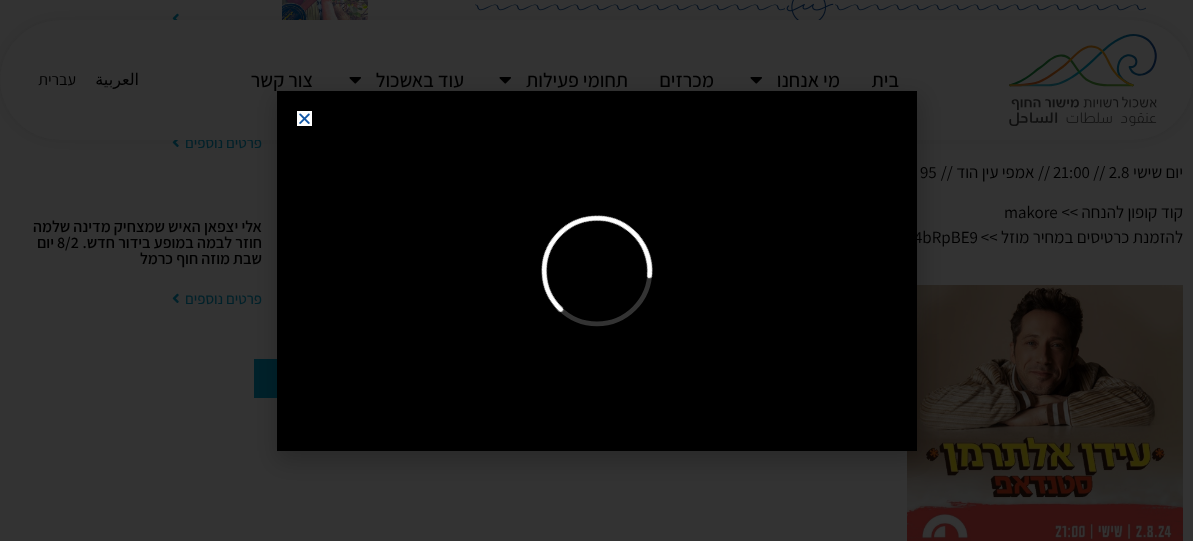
<svg xmlns="http://www.w3.org/2000/svg" width="1193" height="541" viewBox="0 0 1193 541">
  <defs>
    <filter id="blur1" x="-50%" y="-200%" width="200%" height="500%"><feGaussianBlur stdDeviation="12.5"/></filter>
    <filter id="blur2" x="-50%" y="-200%" width="200%" height="500%"><feGaussianBlur stdDeviation="11.5"/></filter>
  </defs>
  <rect width="100%" height="100%" fill="#333333"/>
  <image x="835" y="4" width="311" height="7" href="img5.png"/>
  <image x="786" y="0" width="48" height="20" href="img6.png"/>
  <image x="475" y="4" width="310" height="7" href="img7.png"/>
  <image x="282" y="0" width="86" height="20" href="img9.png"/>
  <image x="172" y="13" width="7" height="7" href="img10.png"/>
  <image x="172" y="140" width="7" height="7" href="img11.png"/>
  <rect x="11" y="31" width="1171" height="98" rx="49" fill="#000000" fill-opacity="0.27" filter="url(#blur1)"/>
  <text x="262" y="148" font-family="Assistant" font-size="15" font-weight="500" direction="rtl" fill="#00212a">פרטים נוספים</text>
  <rect x="0" y="20" width="1193" height="120" rx="60" fill="#333333"/>
  <image x="750" y="77" width="12" height="7" href="img4.png"/>
  <image x="499" y="77" width="12" height="7" href="img4.png"/>
  <image x="349" y="77" width="12" height="7" href="img4.png"/>
  <image x="907" y="285" width="276" height="256" href="img8.png"/>
  <rect x="254" y="359" width="23" height="39" fill="#00212a"/>
  <rect x="276" y="96" width="646" height="366" fill="#000000" fill-opacity="0.2" filter="url(#blur2)"/>
  <rect x="277" y="91" width="640" height="360" fill="#000000"/>
  <image x="541" y="215" width="112" height="112" href="img1.png"/>
  <rect x="297" y="111" width="15" height="15" fill="#ffffff"/>
  <image x="299" y="113" width="11" height="11" href="img2.png"/>
  <image x="1009" y="34" width="148" height="92" href="img3.png"/>
  <text x="899" y="87" font-family="Assistant" font-size="20" font-weight="500" direction="rtl" fill="#000000">בית</text>
  <text x="840" y="87" font-family="Assistant" font-size="20" font-weight="500" direction="rtl" fill="#000000">מי אנחנו</text>
  <text x="714" y="87" font-family="Assistant" font-size="20" font-weight="500" direction="rtl" fill="#000000">מכרזים</text>
  <text x="628" y="87" font-family="Assistant" font-size="20" font-weight="500" direction="rtl" fill="#000000">תחומי פעילות</text>
  <text x="464" y="87" font-family="Assistant" font-size="20" font-weight="500" direction="rtl" fill="#000000">עוד באשכול</text>
  <text x="313" y="87" font-family="Assistant" font-size="20" font-weight="500" direction="rtl" fill="#000000">צור קשר</text>
  <text x="139" y="85" font-family="DejaVu Sans" font-size="16" direction="rtl" fill="#000000">العربية</text>
  <text x="76" y="85" font-family="Assistant" font-size="16" direction="rtl" fill="#000000">עברית</text>
  <text x="1183" y="178" font-family="Assistant" font-size="17" direction="rtl" fill="#000000">יום שישי</text>
  <text x="1053" y="178" font-family="Assistant" font-size="17" fill="#000000">21:00 // 2.8</text>
  <text x="1050" y="178" font-family="Assistant" font-size="17" direction="rtl" fill="#000000">// אמפי עין הוד //</text>
  <text x="920" y="178" font-family="Assistant" font-size="17" fill="#000000">95</text>
  <text x="1183" y="218" font-family="Assistant" font-size="17" direction="rtl" fill="#000000">קוד קופון להנחה &gt;&gt;</text>
  <text x="1004" y="218" font-family="Assistant" font-size="17" fill="#000000">makore</text>
  <text x="1183" y="243" font-family="Assistant" font-size="17" direction="rtl" fill="#000000">להזמנת כרטיסים במחיר מוזל &gt;&gt;</text>
  <text x="914" y="243" font-family="Assistant" font-size="17" fill="#000000">4bRpBE9</text>
  <text x="262" y="232" font-family="Assistant" font-size="16" font-weight="600" direction="rtl" fill="#000000">אלי יצפאן האיש שמצחיק מדינה שלמה</text>
  <text x="262" y="248" font-family="Assistant" font-size="16" font-weight="600" direction="rtl" fill="#000000">חוזר לבמה במופע בידור חדש.</text>
  <text x="57" y="248" font-family="Assistant" font-size="16" font-weight="600" fill="#000000">8/2</text>
  <text x="54" y="248" font-family="Assistant" font-size="16" font-weight="600" direction="rtl" fill="#000000">יום</text>
  <text x="262" y="264" font-family="Assistant" font-size="16" font-weight="600" direction="rtl" fill="#000000">שבת מוזה חוף כרמל</text>
  <text x="262" y="304" font-family="Assistant" font-size="15" font-weight="500" direction="rtl" fill="#00212a">פרטים נוספים</text>
  <image x="172" y="293" width="7" height="10" href="img12.png"/>
</svg>
